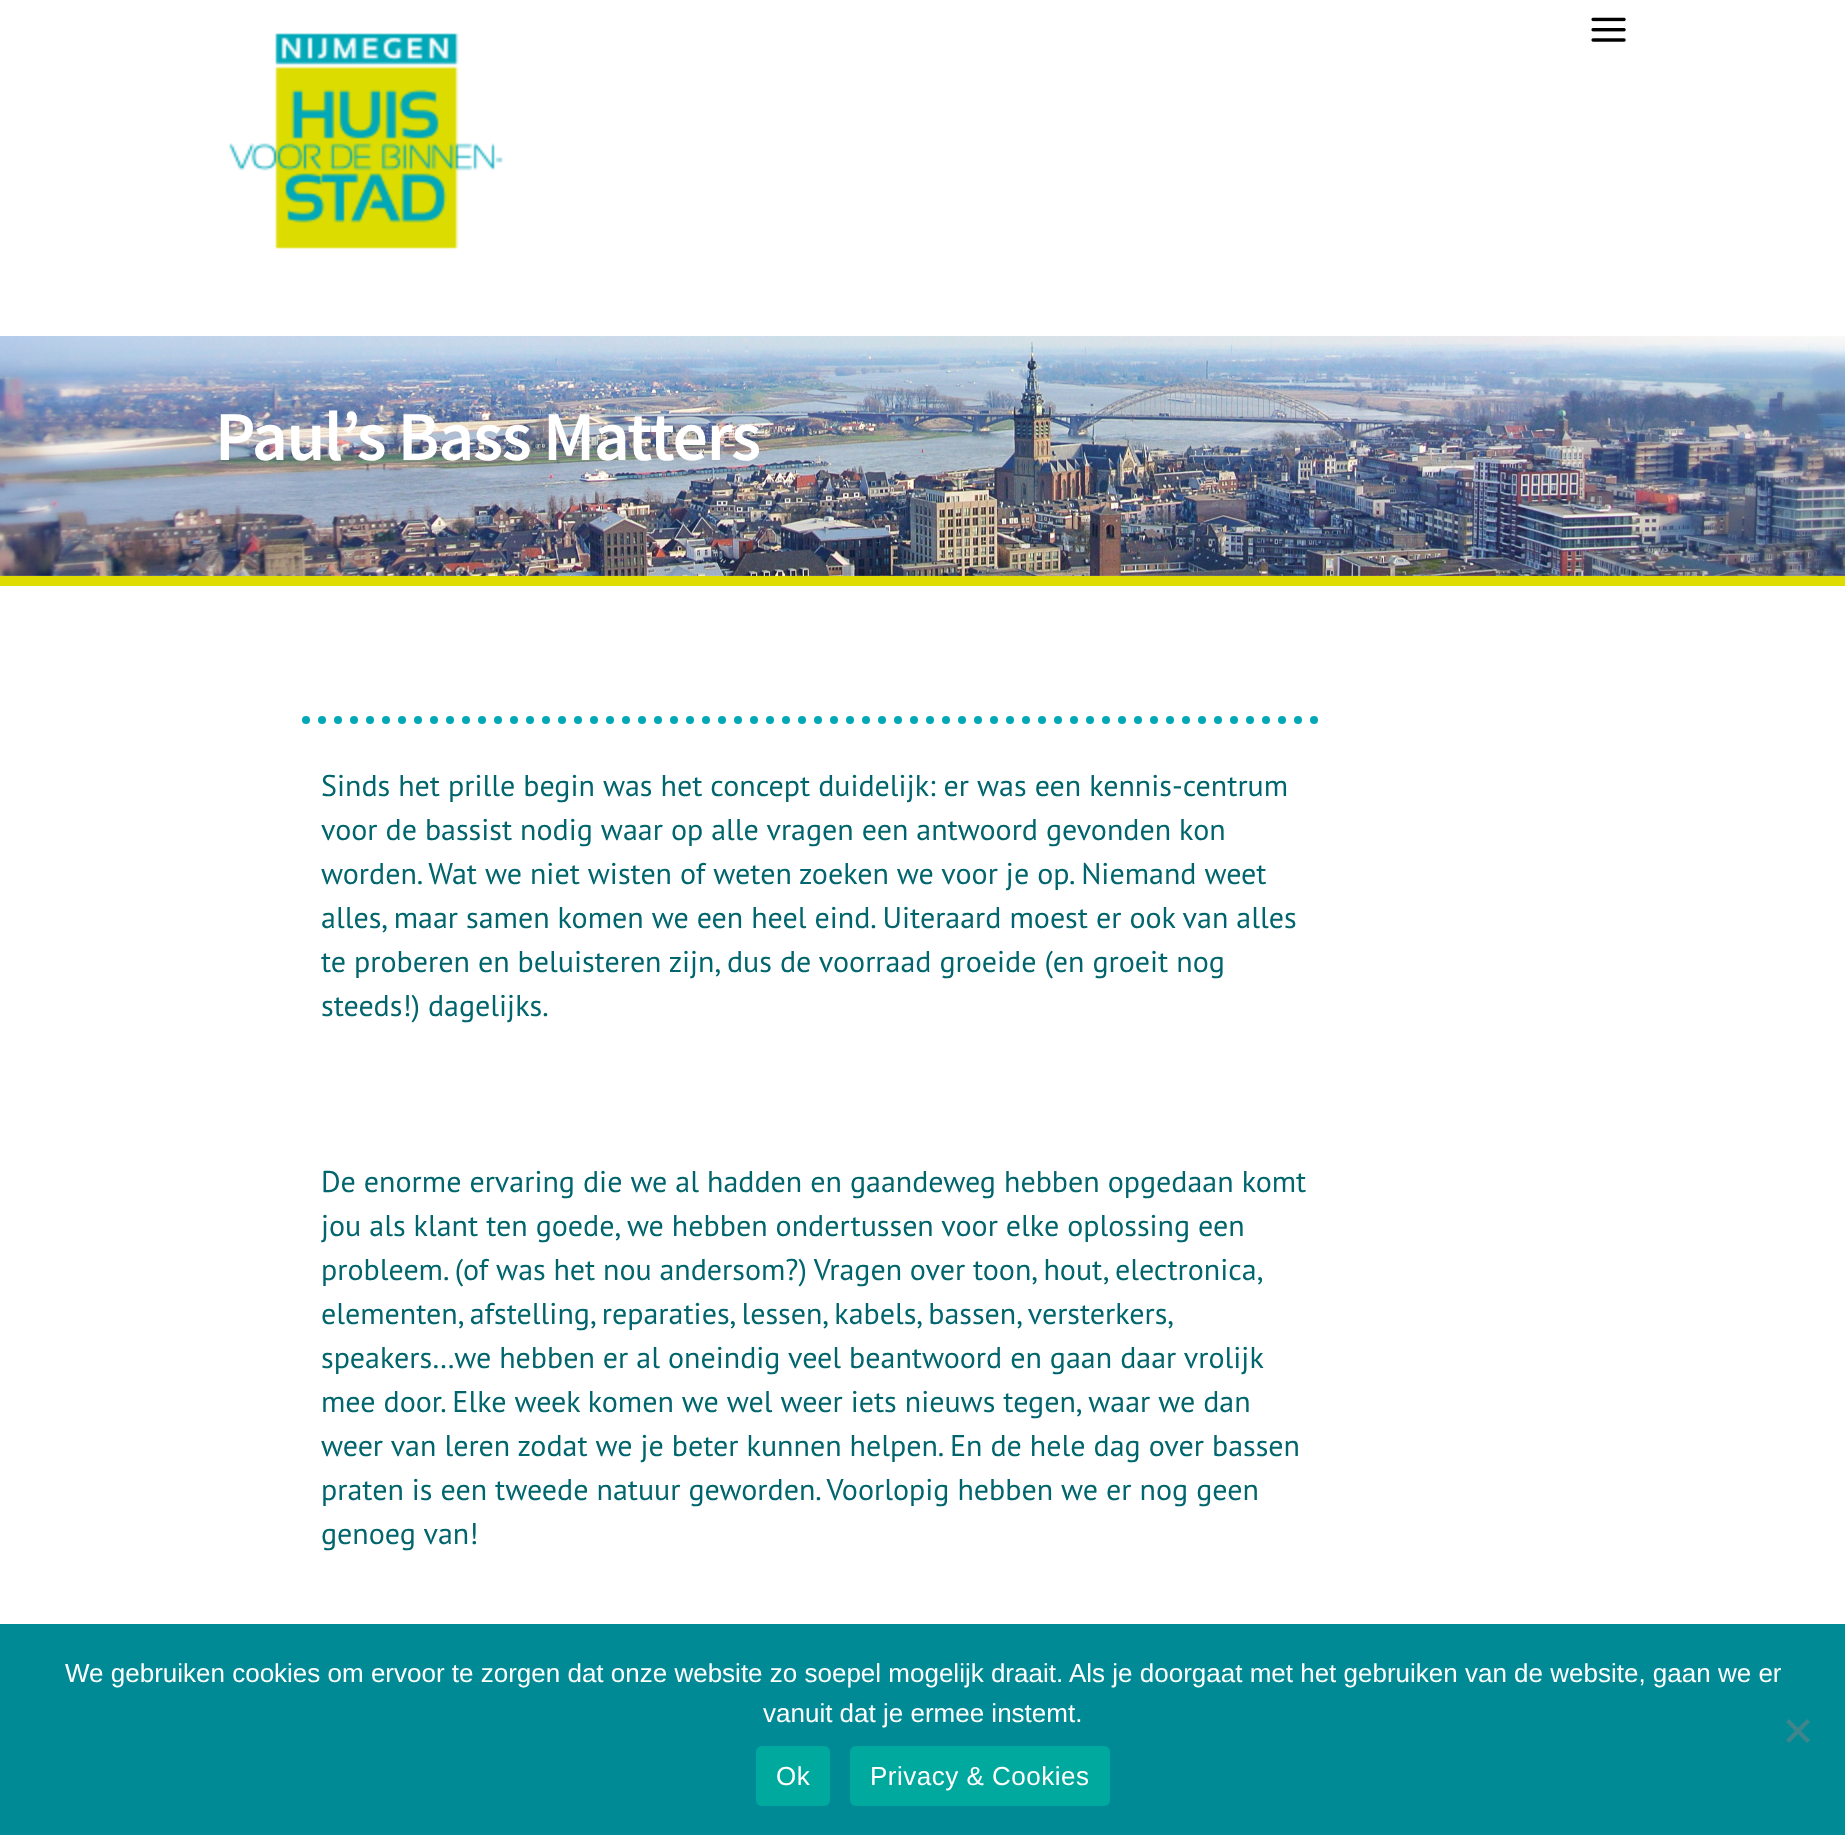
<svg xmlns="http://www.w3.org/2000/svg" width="1845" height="1835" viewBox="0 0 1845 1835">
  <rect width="100%" height="100%" fill="#ffffff"/>
  <image x="1591" y="17" width="35" height="25" href="img1.png"/>
  <image x="229" y="33" width="274" height="216" href="img2.png"/>
  <rect x="0" y="576" width="1845" height="10" fill="#dedc00"/>
  <image x="0" y="336" width="1845" height="240" href="img3.png"/>
  <text x="215" y="460" font-family="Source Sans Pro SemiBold" font-size="70" font-weight="600" letter-spacing="-1.4" fill="#ffffff">Paul’s Bass Matters</text>
  <path d="M306 720H1326" fill="none" stroke="#02a8b8" stroke-width="8" stroke-linecap="round" stroke-dasharray="0 16"/>
  <text x="321" y="796" font-family="PT Sans" font-size="30" fill="#00656d">Sinds het prille begin was het concept duidelijk: er was een kennis-centrum</text>
  <text x="321" y="840" font-family="PT Sans" font-size="30" fill="#00656d">voor de bassist nodig waar op alle vragen een antwoord gevonden kon</text>
  <text x="321" y="884" font-family="PT Sans" font-size="30" fill="#00656d">worden. Wat we niet wisten of weten zoeken we voor je op. Niemand weet</text>
  <text x="321" y="928" font-family="PT Sans" font-size="30" fill="#00656d">alles, maar samen komen we een heel eind. Uiteraard moest er ook van alles</text>
  <text x="321" y="972" font-family="PT Sans" font-size="30" fill="#00656d">te proberen en beluisteren zijn, dus de voorraad groeide (en groeit nog</text>
  <text x="321" y="1016" font-family="PT Sans" font-size="30" fill="#00656d">steeds!) dagelijks.</text>
  <text x="321" y="1192" font-family="PT Sans" font-size="30" fill="#00656d">De enorme ervaring die we al hadden en gaandeweg hebben opgedaan komt</text>
  <text x="321" y="1236" font-family="PT Sans" font-size="30" fill="#00656d">jou als klant ten goede, we hebben ondertussen voor elke oplossing een</text>
  <text x="321" y="1280" word-spacing="-0.25" font-family="PT Sans" font-size="30" fill="#00656d">probleem. (of was het nou andersom?) Vragen over toon, hout, electronica,</text>
  <text x="321" y="1324" word-spacing="-0.5" font-family="PT Sans" font-size="30" fill="#00656d">elementen, afstelling, reparaties, lessen, kabels, bassen, versterkers,</text>
  <text x="321" y="1368" font-family="PT Sans" font-size="30" fill="#00656d">speakers…we hebben er al oneindig veel beantwoord en gaan daar vrolijk</text>
  <text x="321" y="1412" font-family="PT Sans" font-size="30" fill="#00656d">mee door. Elke week komen we wel weer iets nieuws tegen, waar we dan</text>
  <text x="321" y="1456" font-family="PT Sans" font-size="30" fill="#00656d">weer van leren zodat we je beter kunnen helpen. En de hele dag over bassen</text>
  <text x="321" y="1500" font-family="PT Sans" font-size="30" fill="#00656d">praten is een tweede natuur geworden. Voorlopig hebben we er nog geen</text>
  <text x="321" y="1544" font-family="PT Sans" font-size="30" fill="#00656d">genoeg van!</text>
  <rect x="0" y="1624" width="1845" height="211" fill="#008a96"/>
  <text x="65" y="1682" font-family="Liberation Sans" font-size="26" fill="#ffffff">We gebruiken cookies om ervoor te zorgen dat onze website zo soepel mogelijk draait. Als je doorgaat met het gebruiken van de website, gaan we er</text>
  <text x="763" y="1722" font-family="Liberation Sans" font-size="26" fill="#ffffff">vanuit dat je ermee instemt.</text>
  <path d="M1807 1719L1810 1722L1789 1743L1786 1740Z" fill="#40858b"/>
  <path d="M1786 1722L1789 1719L1810 1740L1807 1743Z" fill="#40858b"/>
  <rect x="756" y="1746" width="74" height="60" rx="6" fill="#00a99d"/>
  <text x="776" y="1785" font-family="Liberation Sans" font-size="26" letter-spacing="0.5" fill="#ffffff">Ok</text>
  <rect x="850" y="1746" width="260" height="60" rx="6" fill="#00a99d"/>
  <text x="870" y="1785" font-family="Liberation Sans" font-size="26" letter-spacing="0.5" fill="#ffffff">Privacy &amp; Cookies</text>
</svg>
